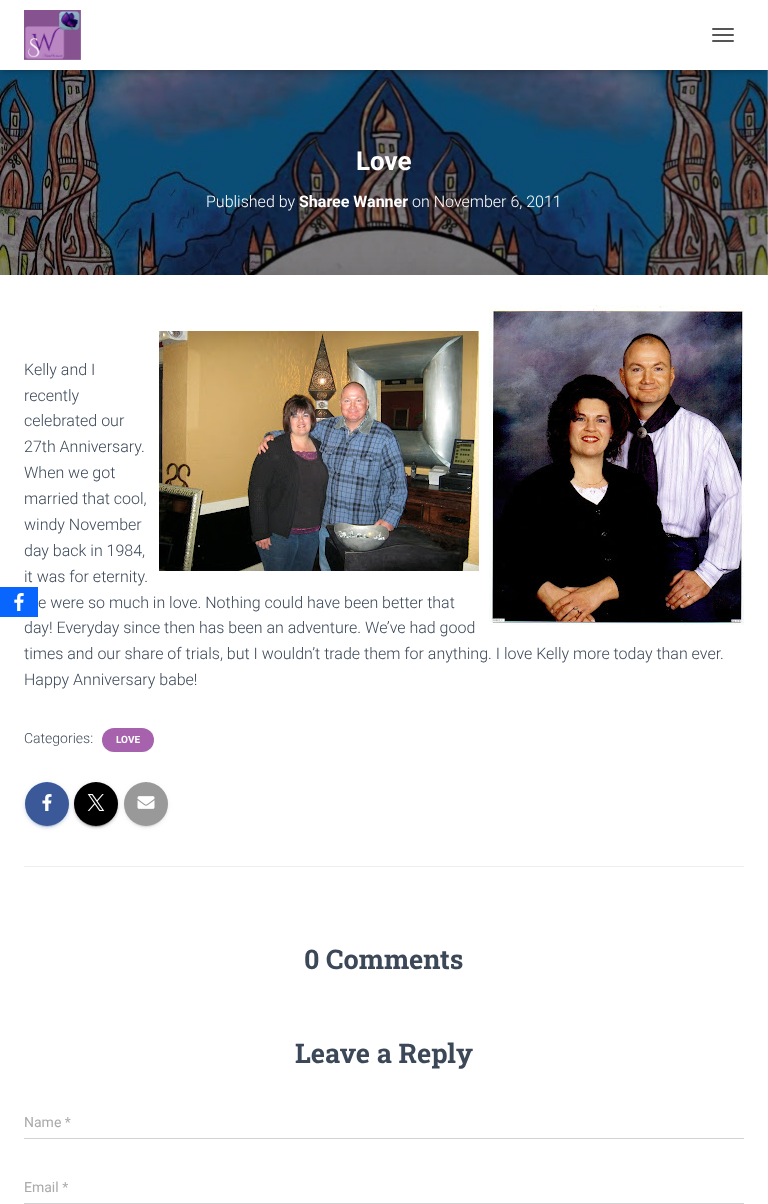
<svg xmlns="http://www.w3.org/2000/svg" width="768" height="1204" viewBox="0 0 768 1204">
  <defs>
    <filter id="blur1" x="-50%" y="-200%" width="200%" height="500%"><feGaussianBlur stdDeviation="15"/></filter>
    <filter id="blur2" x="-50%" y="-200%" width="200%" height="500%"><feGaussianBlur stdDeviation="2.5"/></filter>
    <filter id="blur3" x="-50%" y="-200%" width="200%" height="500%"><feGaussianBlur stdDeviation="5"/></filter>
    <filter id="blur4" x="-50%" y="-200%" width="200%" height="500%"><feGaussianBlur stdDeviation="0.5"/></filter>
    <filter id="blur5" x="-50%" y="-200%" width="200%" height="500%"><feGaussianBlur stdDeviation="1"/></filter>
  </defs>
  <rect width="100%" height="100%" fill="#ffffff"/>
  <image x="0" y="70" width="768" height="205" href="img3.png"/>
  <rect x="-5" y="276" width="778" height="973" fill="#000000" fill-opacity="0.12" filter="url(#blur1)"/>
  <rect x="0" y="275" width="768" height="929" fill="#ffffff"/>
  <rect x="0" y="587" width="38" height="30" fill="#0866ff"/>
  <image x="14" y="593" width="10" height="18" href="img1.png"/>
  <rect x="2" y="6" width="764" height="66" fill="#000000" fill-opacity="0.1" filter="url(#blur2)"/>
  <rect x="0" y="1" width="768" height="70" fill="#000000" fill-opacity="0.12" filter="url(#blur3)"/>
  <rect x="6" y="7" width="756" height="58" fill="#000000" fill-opacity="0.42" filter="url(#blur3)"/>
  <rect x="0" y="0" width="768" height="70" fill="#ffffff"/>
  <image x="24" y="10" width="57" height="50" href="img2.png"/>
  <rect x="712" y="28" width="22" height="2" rx="1" fill="#555555"/>
  <rect x="712" y="34" width="22" height="2" rx="1" fill="#555555"/>
  <rect x="712" y="40" width="22" height="2" rx="1" fill="#555555"/>
  <text x="356" y="170" font-family="Roboto" font-size="26" font-weight="bold" fill="#ffffff">Love</text>
  <text x="206" y="207" font-family="Roboto" font-size="16" font-weight="300" fill="#ffffff">Published by</text>
  <text x="299" y="207" font-family="Roboto" font-size="16" font-weight="bold" fill="#ffffff">Sharee Wanner</text>
  <text x="412" y="207" font-family="Roboto" font-size="16" font-weight="300" fill="#ffffff">on November 6, 2011</text>
  <text x="24" y="375" font-family="Roboto" font-size="16" font-weight="300" fill="#3c4858">Kelly and I</text>
  <image x="159" y="331" width="320" height="240" href="img4.png"/>
  <image x="489" y="305" width="255" height="320" href="img5.png"/>
  <text x="24" y="401" font-family="Roboto" font-size="16" font-weight="300" fill="#3c4858">recently</text>
  <text x="24" y="426" font-family="Roboto" font-size="16" font-weight="300" fill="#3c4858">celebrated our</text>
  <text x="24" y="452" font-family="Roboto" font-size="16" font-weight="300" fill="#3c4858">27th Anniversary.</text>
  <text x="24" y="478" font-family="Roboto" font-size="16" font-weight="300" fill="#3c4858">When we got</text>
  <text x="24" y="504" font-family="Roboto" font-size="16" font-weight="300" fill="#3c4858">married that cool,</text>
  <text x="24" y="530" font-family="Roboto" font-size="16" font-weight="300" fill="#3c4858">windy November</text>
  <text x="24" y="556" font-family="Roboto" font-size="16" font-weight="300" fill="#3c4858">day back in 1984,</text>
  <text x="24" y="582" font-family="Roboto" font-size="16" font-weight="300" fill="#3c4858">it was for eternity.</text>
  <text x="38" y="608" font-family="Roboto" font-size="16" font-weight="300" fill="#3c4858">e were so much in love. Nothing could have been better that</text>
  <text x="24" y="633" font-family="Roboto" font-size="16" font-weight="300" fill="#3c4858">day! Everyday since then has been an adventure. We’ve had good</text>
  <text x="24" y="659" font-family="Roboto" font-size="16" font-weight="300" fill="#3c4858">times and our share of trials, but I wouldn’t trade them for anything. I love Kelly more today than ever.</text>
  <text x="24" y="685" font-family="Roboto" font-size="16" font-weight="300" fill="#3c4858">Happy Anniversary babe!</text>
  <text x="24" y="743" font-family="Roboto" font-size="14" font-weight="300" fill="#3c4858">Categories:</text>
  <rect x="102" y="728" width="52" height="24" rx="12" fill="#a762ad"/>
  <text x="116" y="743" font-family="Roboto" font-size="10" font-weight="bold" fill="#ffffff">LOVE</text>
  <rect x="25" y="783" width="44" height="44" rx="22" fill="#3b5998" fill-opacity="0.12" filter="url(#blur2)"/>
  <rect x="27" y="787" width="40" height="40" rx="20" fill="#3b5998" fill-opacity="0.2" filter="url(#blur4)"/>
  <rect x="25" y="784" width="44" height="44" rx="22" fill="#3b5998" fill-opacity="0.14" filter="url(#blur5)"/>
  <circle cx="47" cy="804" r="22" fill="#3b5998"/>
  <image x="42" y="794" width="10" height="17" href="img6.png"/>
  <rect x="74" y="783" width="44" height="44" rx="22" fill="#000000" fill-opacity="0.12" filter="url(#blur2)"/>
  <rect x="76" y="787" width="40" height="40" rx="20" fill="#000000" fill-opacity="0.2" filter="url(#blur4)"/>
  <rect x="74" y="784" width="44" height="44" rx="22" fill="#000000" fill-opacity="0.14" filter="url(#blur5)"/>
  <circle cx="96" cy="804" r="22" fill="#000000"/>
  <image x="87" y="794" width="18" height="17" href="img7.png"/>
  <rect x="124" y="783" width="44" height="44" rx="22" fill="#999999" fill-opacity="0.12" filter="url(#blur2)"/>
  <rect x="126" y="787" width="40" height="40" rx="20" fill="#999999" fill-opacity="0.2" filter="url(#blur4)"/>
  <rect x="124" y="784" width="44" height="44" rx="22" fill="#999999" fill-opacity="0.14" filter="url(#blur5)"/>
  <circle cx="146" cy="804" r="22" fill="#999999"/>
  <image x="137" y="796" width="18" height="13" href="img8.png"/>
  <rect x="24" y="866" width="720" height="1" fill="#eeeeee"/>
  <text x="304" y="969" font-family="Roboto Slab" font-size="27" font-weight="bold" fill="#3c4858">0 Comments</text>
  <text x="295" y="1063" font-family="Roboto Slab" font-size="27" font-weight="bold" fill="#3c4858">Leave a Reply</text>
  <text x="24" y="1127" font-family="Roboto" font-size="14" fill="#aaaaaa">Name *</text>
  <rect x="24" y="1138" width="720" height="1" fill="#d2d2d2"/>
  <text x="24" y="1192" font-family="Roboto" font-size="14" fill="#aaaaaa">Email *</text>
  <rect x="24" y="1203" width="720" height="1" fill="#d2d2d2"/>
</svg>
